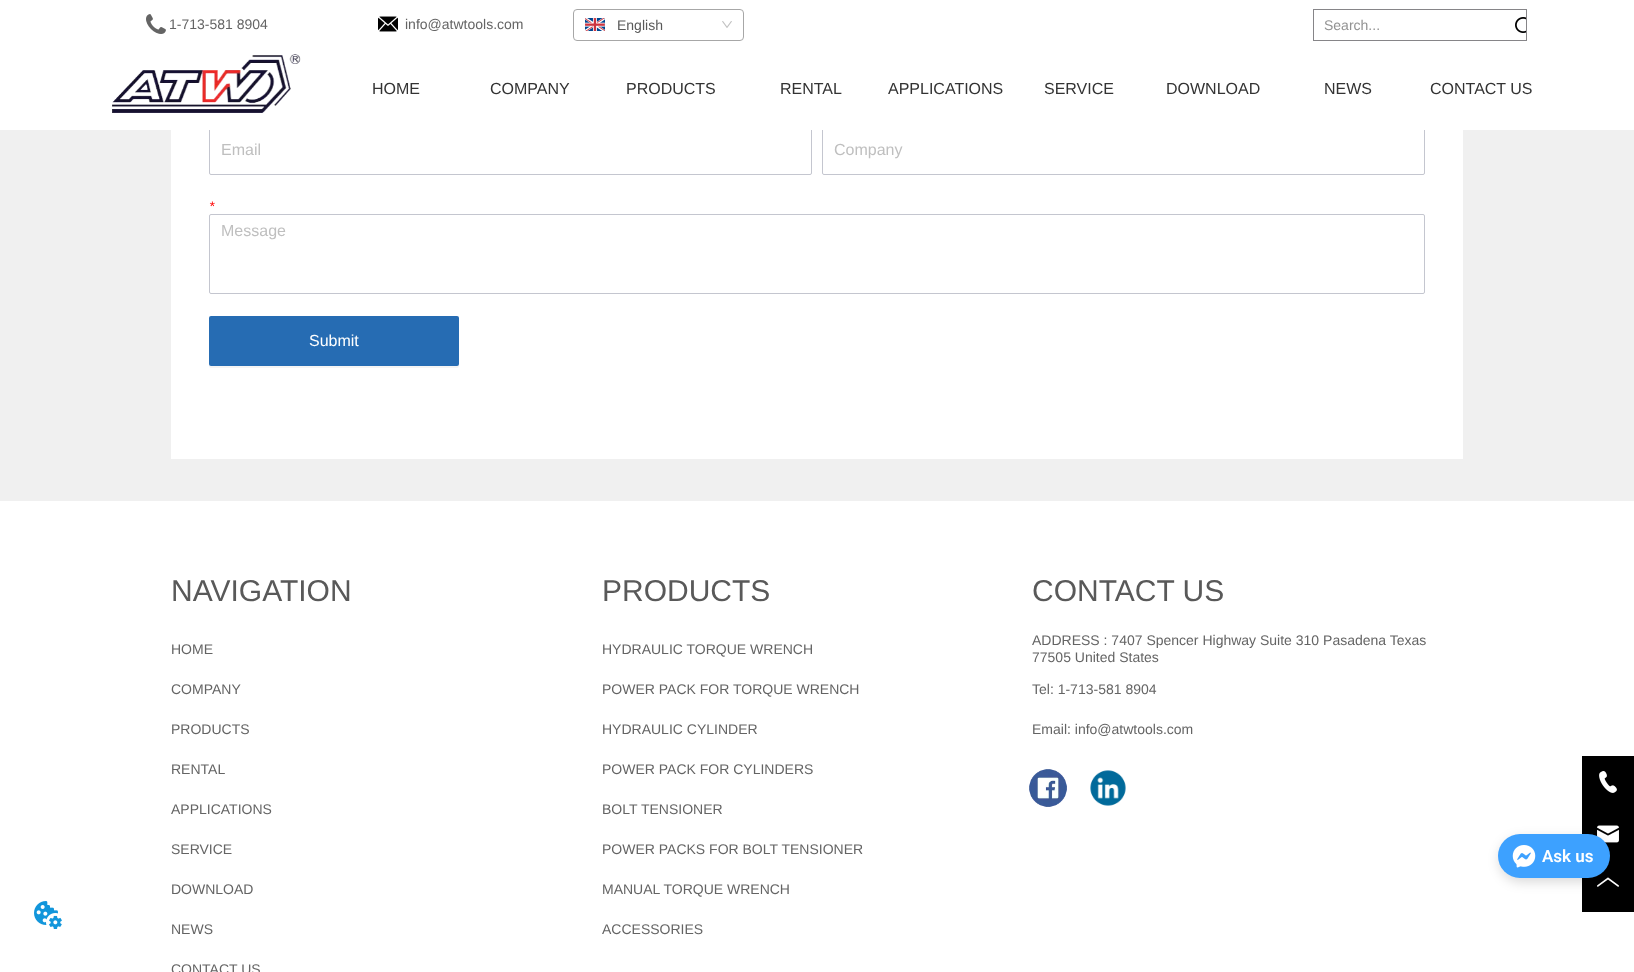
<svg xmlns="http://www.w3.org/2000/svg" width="1634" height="972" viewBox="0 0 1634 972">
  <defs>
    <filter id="blur1" x="-50%" y="-200%" width="200%" height="500%"><feGaussianBlur stdDeviation="6"/></filter>
  </defs>
  <rect width="100%" height="100%" fill="#ffffff"/>
  <rect x="0" y="130" width="1634" height="371" fill="#f0f0f0"/>
  <rect x="171" y="130" width="1292" height="329" fill="#ffffff"/>
  <rect x="209.5" y="125.5" width="602" height="49" rx="1.5" fill="none" stroke="#c4c6cf"/>
  <rect x="822.5" y="125.5" width="602" height="49" rx="1.5" fill="none" stroke="#c4c6cf"/>
  <rect x="209" y="125" width="1216" height="5" fill="#ffffff"/>
  <image x="146" y="14" width="20" height="20" href="img1.png"/>
  <text x="169" y="29" font-family="Liberation Sans" font-size="14" fill="#646464">1-713-581 8904</text>
  <image x="378" y="16" width="20" height="16" href="img2.png"/>
  <text x="405" y="29" font-family="Liberation Sans" font-size="14" fill="#646464">info@atwtools.com</text>
  <rect x="573.5" y="9.5" width="170" height="31" rx="3.5" fill="none" stroke="#a7a7a7"/>
  <image x="585" y="18" width="20" height="13" href="img3.png"/>
  <text x="617" y="30" font-family="Liberation Sans" font-size="14" fill="#595959">English</text>
  <image x="722" y="21" width="10" height="7" href="img4.png"/>
  <rect x="1313.5" y="9.5" width="213" height="31" fill="none" stroke="#868588"/>
  <text x="1324" y="30" font-family="Liberation Sans" font-size="14" fill="#929292">Search...</text>
  <image x="1515" y="17" width="11" height="16" href="img5.png"/>
  <image x="112" y="54" width="189" height="59" href="img6.png"/>
  <text x="372" y="94" font-family="Liberation Sans" font-size="16" fill="#333333">HOME</text>
  <text x="490" y="94" font-family="Liberation Sans" font-size="16" fill="#333333">COMPANY</text>
  <text x="626" y="94" font-family="Liberation Sans" font-size="16" fill="#333333">PRODUCTS</text>
  <text x="780" y="94" font-family="Liberation Sans" font-size="16" fill="#333333">RENTAL</text>
  <text x="888" y="94" font-family="Liberation Sans" font-size="16" fill="#333333">APPLICATIONS</text>
  <text x="1044" y="94" font-family="Liberation Sans" font-size="16" fill="#333333">SERVICE</text>
  <text x="1166" y="94" font-family="Liberation Sans" font-size="16" fill="#333333">DOWNLOAD</text>
  <text x="1324" y="94" font-family="Liberation Sans" font-size="16" fill="#333333">NEWS</text>
  <text x="1430" y="94" font-family="Liberation Sans" font-size="16" fill="#333333">CONTACT US</text>
  <text x="221" y="155" font-family="Liberation Sans" font-size="16" fill="#bfbfbf">Email</text>
  <text x="834" y="155" font-family="Liberation Sans" font-size="16" fill="#bfbfbf">Company</text>
  <text x="209" y="211" font-family="Liberation Sans" font-size="14" font-style="italic" fill="#ff0000">*</text>
  <rect x="209.5" y="214.5" width="1215" height="79" rx="1.5" fill="none" stroke="#c4c6cf"/>
  <text x="221" y="236" font-family="Liberation Sans" font-size="16" fill="#bfbfbf">Message</text>
  <path d="M209 364C209 366 209 368 211 368H457C459 368 459 366 459 364C459 365 458 366 457 366H211C210 366 209 365 209 364Z" fill="#f4f4f4"/>
  <rect x="209" y="316" width="250" height="50" rx="2" fill="#266cb3"/>
  <text x="309" y="346" font-family="Liberation Sans" font-size="16" fill="#ffffff">Submit</text>
  <text x="171" y="601" font-family="Liberation Sans" font-size="30" fill="#595959">NAVIGATION</text>
  <text x="171" y="654" font-family="Liberation Sans" font-size="14" fill="#646464">HOME</text>
  <text x="171" y="694" font-family="Liberation Sans" font-size="14" fill="#646464">COMPANY</text>
  <text x="171" y="734" font-family="Liberation Sans" font-size="14" fill="#646464">PRODUCTS</text>
  <text x="171" y="774" font-family="Liberation Sans" font-size="14" fill="#646464">RENTAL</text>
  <rect x="1582" y="756" width="52" height="156" fill="#000000"/>
  <image x="1599" y="771" width="18" height="22" href="img7.png"/>
  <image x="1597" y="825" width="22" height="18" href="img8.png"/>
  <image x="1597" y="877" width="22" height="10" href="img9.png"/>
  <text x="171" y="814" font-family="Liberation Sans" font-size="14" fill="#646464">APPLICATIONS</text>
  <text x="171" y="854" font-family="Liberation Sans" font-size="14" fill="#646464">SERVICE</text>
  <text x="171" y="894" font-family="Liberation Sans" font-size="14" fill="#646464">DOWNLOAD</text>
  <text x="171" y="934" font-family="Liberation Sans" font-size="14" fill="#646464">NEWS</text>
  <text x="171" y="974" font-family="Liberation Sans" font-size="14" fill="#646464">CONTACT US</text>
  <text x="602" y="601" font-family="Liberation Sans" font-size="30" fill="#595959">PRODUCTS</text>
  <text x="602" y="654" font-family="Liberation Sans" font-size="14" fill="#646464">HYDRAULIC TORQUE WRENCH</text>
  <text x="602" y="694" font-family="Liberation Sans" font-size="14" fill="#646464">POWER PACK FOR TORQUE WRENCH</text>
  <text x="602" y="734" font-family="Liberation Sans" font-size="14" fill="#646464">HYDRAULIC CYLINDER</text>
  <text x="602" y="774" font-family="Liberation Sans" font-size="14" fill="#646464">POWER PACK FOR CYLINDERS</text>
  <text x="602" y="814" font-family="Liberation Sans" font-size="14" fill="#646464">BOLT TENSIONER</text>
  <text x="602" y="854" font-family="Liberation Sans" font-size="14" fill="#646464">POWER PACKS FOR BOLT TENSIONER</text>
  <text x="602" y="894" font-family="Liberation Sans" font-size="14" fill="#646464">MANUAL TORQUE WRENCH</text>
  <text x="602" y="934" font-family="Liberation Sans" font-size="14" fill="#646464">ACCESSORIES</text>
  <text x="1032" y="601" font-family="Liberation Sans" font-size="30" fill="#595959">CONTACT US</text>
  <text x="1032" y="645" font-family="Liberation Sans" font-size="14" fill="#646464">ADDRESS : 7407 Spencer Highway Suite 310 Pasadena Texas</text>
  <text x="1032" y="662" font-family="Liberation Sans" font-size="14" fill="#646464">77505 United States</text>
  <text x="1032" y="694" font-family="Liberation Sans" font-size="14" fill="#646464">Tel: 1-713-581 8904</text>
  <text x="1032" y="734" font-family="Liberation Sans" font-size="14" fill="#646464">Email: info@atwtools.com</text>
  <image x="1029" y="769" width="38" height="38" href="img10.png"/>
  <image x="1090" y="770" width="36" height="36" href="img11.png"/>
  <rect x="1499" y="838" width="111" height="44" rx="22" fill="#000000" fill-opacity="0.15" filter="url(#blur1)"/>
  <rect x="1498" y="834" width="112" height="44" rx="22" fill="#3da1ff"/>
  <image x="1512" y="845" width="24" height="23" href="img12.png"/>
  <text x="1542" y="862" font-family="Roboto" font-size="17" font-weight="600" fill="#ffffff">Ask us</text>
  <image x="34" y="901" width="28" height="28" href="img13.png"/>
</svg>
